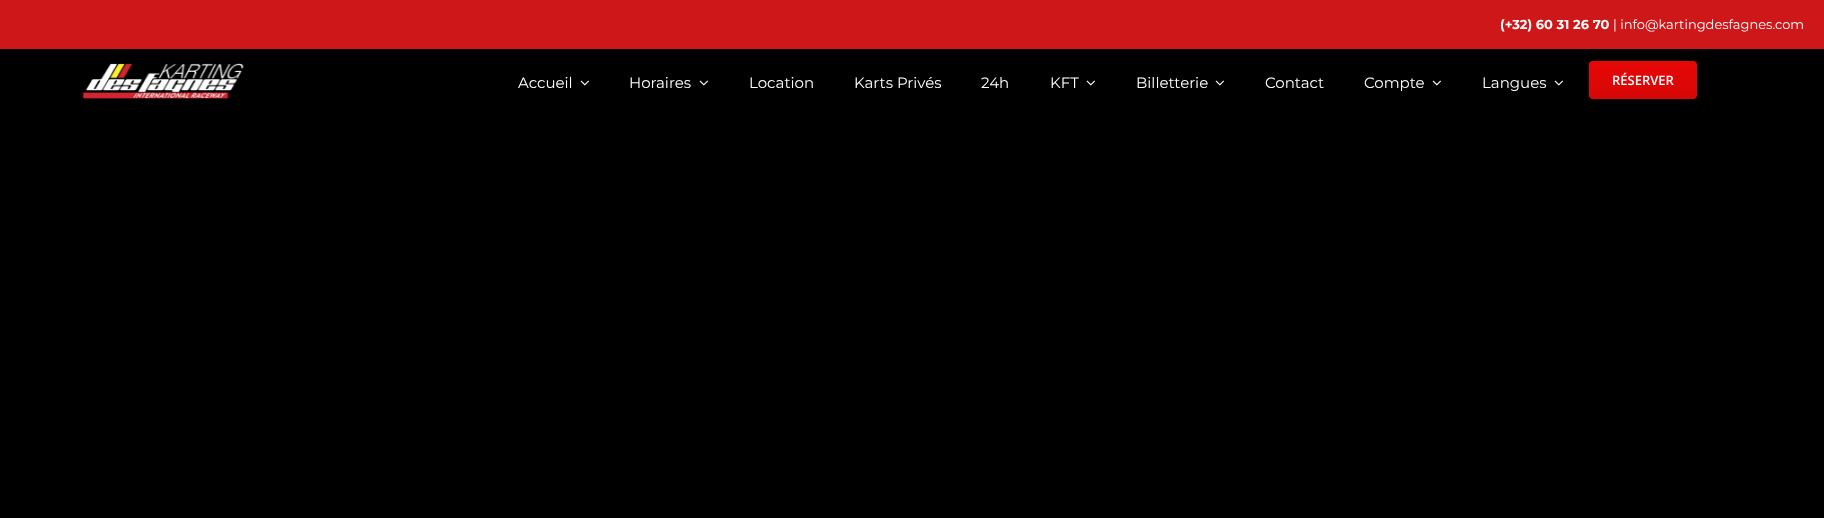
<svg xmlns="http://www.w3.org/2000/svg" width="1824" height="518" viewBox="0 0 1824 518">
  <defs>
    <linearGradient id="g1" gradientUnits="userSpaceOnUse" x1="1643" y1="61" x2="1643" y2="99"><stop offset="0" stop-color="#e80707"/><stop offset="1" stop-color="#d60707"/></linearGradient>
  </defs>
  <rect width="100%" height="100%" fill="#000000"/>
  <rect x="0" y="0" width="1824" height="49" fill="#cd1719"/>
  <text x="1500" y="29" font-family="Montserrat" font-size="13" font-weight="bold" fill="#ffffff">(+32) 60 31 26 70</text>
  <text x="1613" y="29" font-family="Montserrat" font-size="13" fill="#ffffff">| info@kartingdesfagnes.com</text>
  <image x="82" y="63" width="162" height="36" href="img1.png"/>
  <text x="518" y="88" font-family="Montserrat" font-size="15" fill="#ffffff">Accueil</text>
  <image x="580" y="80" width="9" height="6" href="img2.png"/>
  <text x="629" y="88" font-family="Montserrat" font-size="15" fill="#ffffff">Horaires</text>
  <image x="699" y="80" width="9" height="6" href="img2.png"/>
  <text x="749" y="88" font-family="Montserrat" font-size="15" fill="#ffffff">Location</text>
  <text x="854" y="88" font-family="Montserrat" font-size="15" fill="#ffffff">Karts Privés</text>
  <text x="981" y="88" font-family="Montserrat" font-size="15" fill="#ffffff">24h</text>
  <text x="1050" y="88" font-family="Montserrat" font-size="15" fill="#ffffff">KFT</text>
  <image x="1086" y="80" width="9" height="6" href="img2.png"/>
  <text x="1136" y="88" font-family="Montserrat" font-size="15" fill="#ffffff">Billetterie</text>
  <image x="1215" y="80" width="9" height="6" href="img2.png"/>
  <text x="1265" y="88" font-family="Montserrat" font-size="15" fill="#ffffff">Contact</text>
  <text x="1364" y="88" font-family="Montserrat" font-size="15" fill="#ffffff">Compte</text>
  <image x="1432" y="80" width="9" height="6" href="img2.png"/>
  <text x="1482" y="88" font-family="Montserrat" font-size="15" fill="#ffffff">Langues</text>
  <image x="1554" y="80" width="9" height="6" href="img2.png"/>
  <rect x="1589" y="61" width="108" height="38" rx="4" fill="url(#g1)"/>
  <text x="1612" y="85" font-family="Open Sans" font-size="13" font-weight="600" fill="#ffffff">RÉSERVER</text>
</svg>
